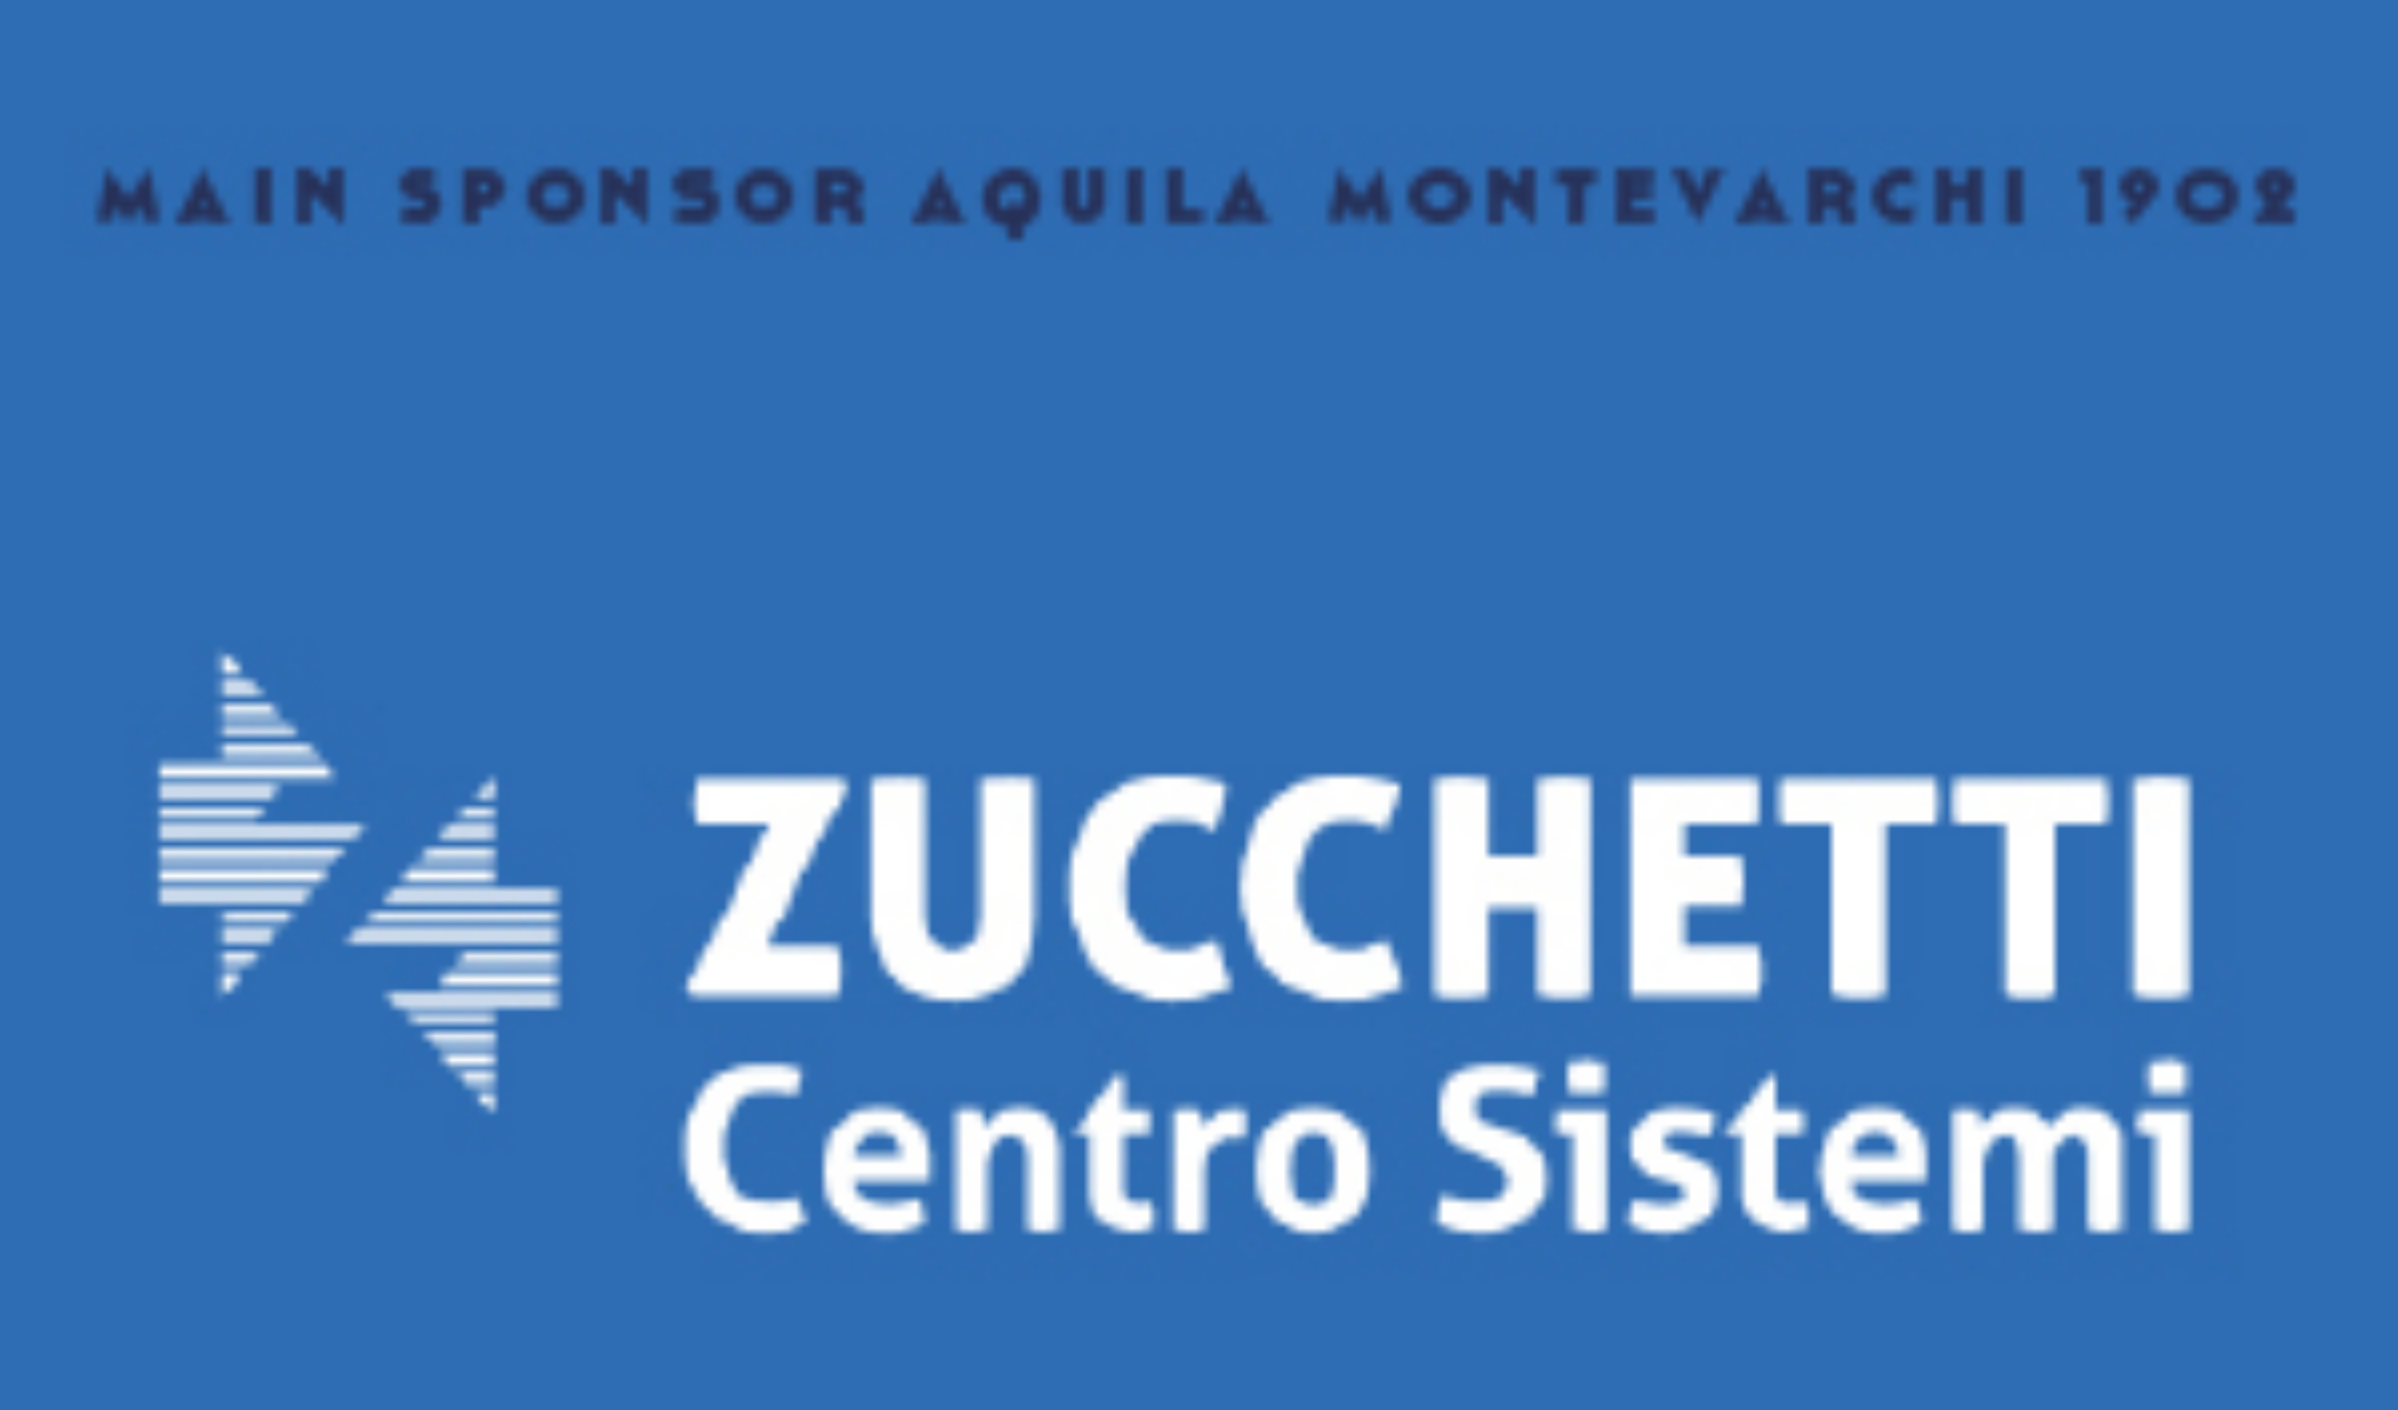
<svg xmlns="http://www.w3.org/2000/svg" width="2398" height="1410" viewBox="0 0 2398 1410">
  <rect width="100%" height="100%" fill="#ffffff"/>
  <image x="0" y="0" width="2398" height="1410" href="img1.png"/>
</svg>
